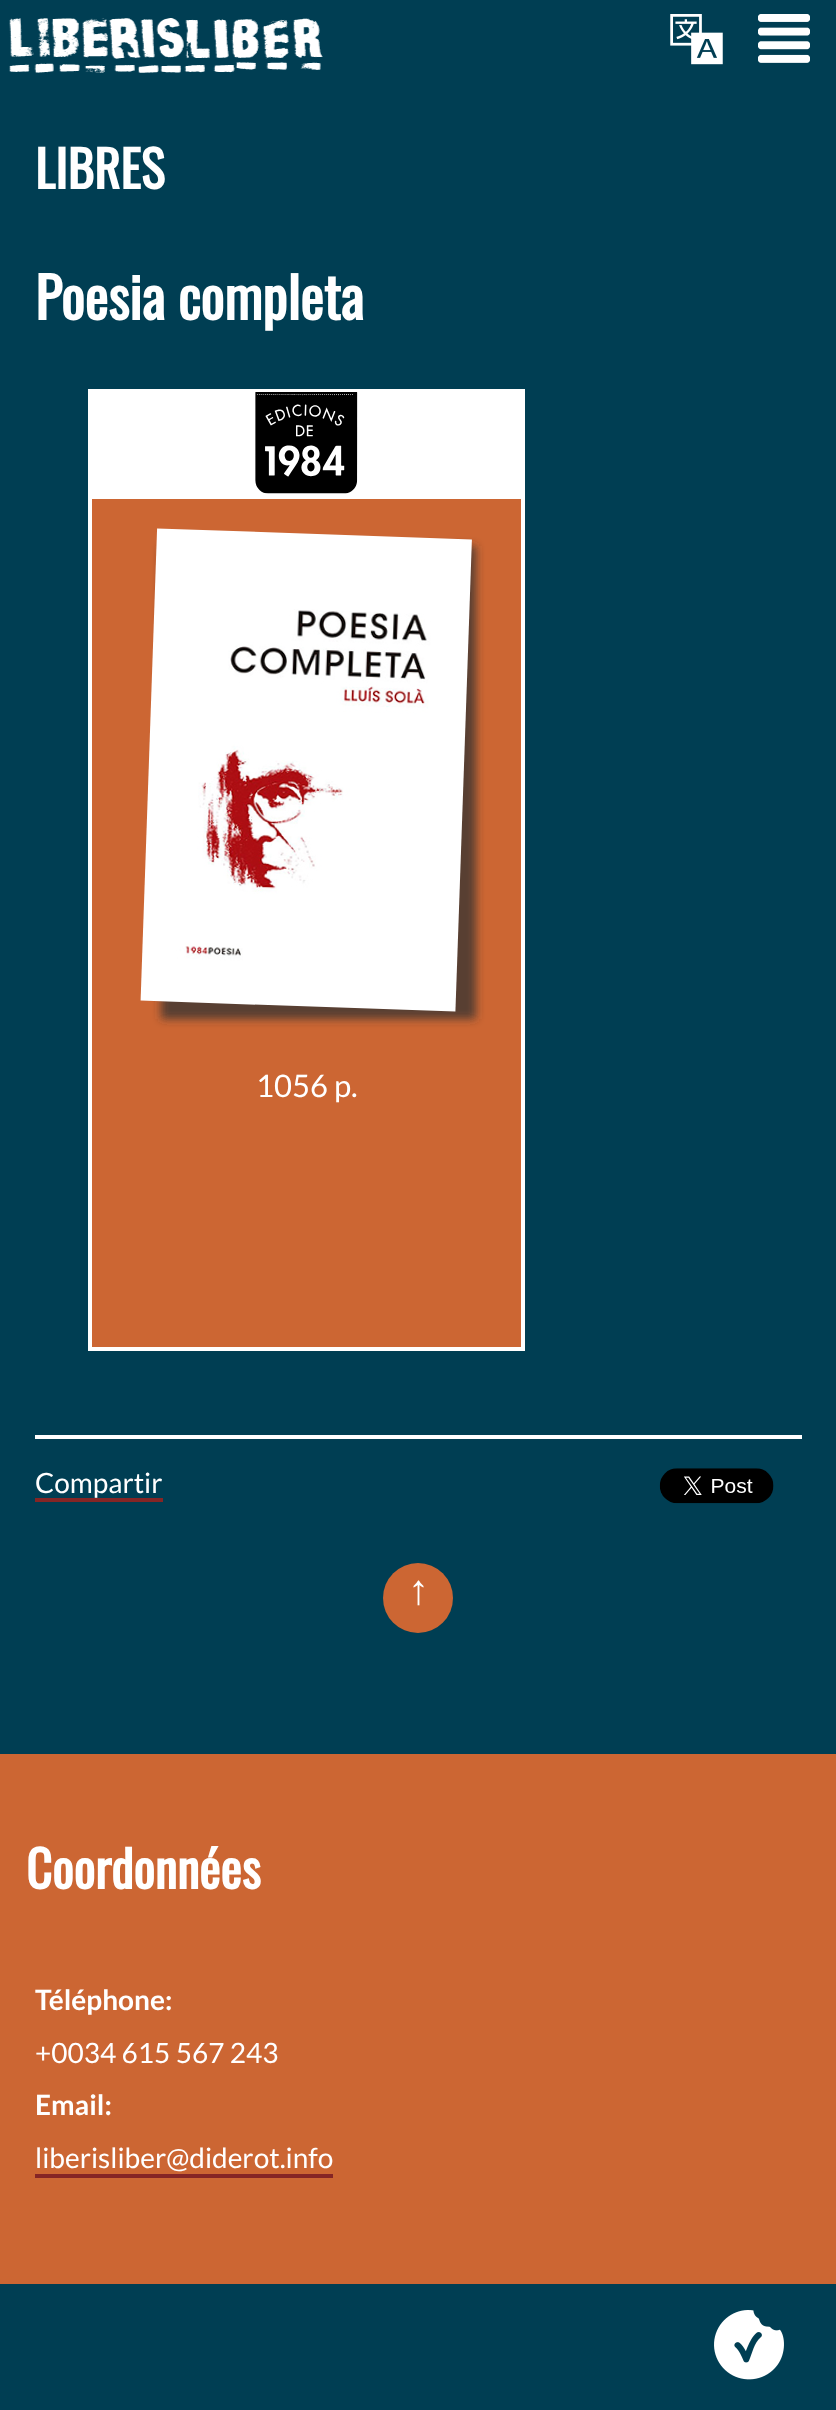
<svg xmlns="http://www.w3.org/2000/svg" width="836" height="2410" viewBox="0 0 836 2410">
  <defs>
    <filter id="blur1" x="-50%" y="-200%" width="200%" height="500%"><feGaussianBlur stdDeviation="4.5"/></filter>
  </defs>
  <rect width="100%" height="100%" fill="#003e53"/>
  <image x="9" y="18" width="314" height="55" href="img1.png"/>
  <image x="670" y="14" width="53" height="51" href="img2.png"/>
  <image x="758" y="14" width="52" height="49" href="img3.png"/>
  <text x="35" y="189" font-family="Oswald" font-size="50.5" font-weight="bold" fill="#ffffff">LIBRES</text>
  <text x="35" y="320" font-family="Oswald" font-size="56" font-weight="bold" fill="#ffffff">Poesia completa</text>
  <rect x="92" y="499" width="429" height="848" fill="#cc6633"/>
  <rect x="90" y="391" width="433" height="958" fill="none" stroke="#ffffff" stroke-width="4"/>
  <rect x="92" y="393" width="429" height="106" fill="#ffffff"/>
  <image x="255" y="392" width="103" height="102" href="img4.png"/>
  <rect x="161" y="546" width="315" height="473" fill="#323232" fill-opacity="0.75" filter="url(#blur1)"/>
  <image x="140" y="528" width="332" height="484" href="img5.png"/>
  <text x="256" y="1097" font-family="Lato" font-size="31" fill="#ffffff">1056 p.</text>
  <rect x="35" y="1435" width="767" height="4" fill="#ffffff"/>
  <text x="35" y="1493" font-family="Lato" font-size="28" fill="#ffffff">Compartir</text>
  <rect x="35" y="1498" width="128" height="4" fill="#852525"/>
  <image x="659" y="1468" width="115" height="36" href="img6.png"/>
  <circle cx="418" cy="1598" r="35" fill="#cc6633"/>
  <text x="408" y="1604" font-family="Liberation Sans" font-size="42" font-weight="bold" fill="#ffffff">↑</text>
  <rect x="0" y="1754" width="836" height="530" fill="#cc6633"/>
  <text x="26" y="1889" font-family="Oswald" font-size="50.5" font-weight="bold" fill="#ffffff">Coordonnées</text>
  <text x="35" y="2010" font-family="Lato" font-size="28" font-weight="bold" fill="#ffffff">Téléphone:</text>
  <text x="35" y="2063" font-family="Lato" font-size="28" fill="#ffffff">+0034 615 567 243</text>
  <text x="35" y="2115" font-family="Lato" font-size="28" font-weight="bold" fill="#ffffff">Email:</text>
  <text x="35" y="2168" font-family="Lato" font-size="28" fill="#ffffff">liberisliber@diderot.info</text>
  <rect x="35" y="2174" width="298" height="4" fill="#852525"/>
  <image x="714" y="2310" width="70" height="70" href="img7.png"/>
</svg>
